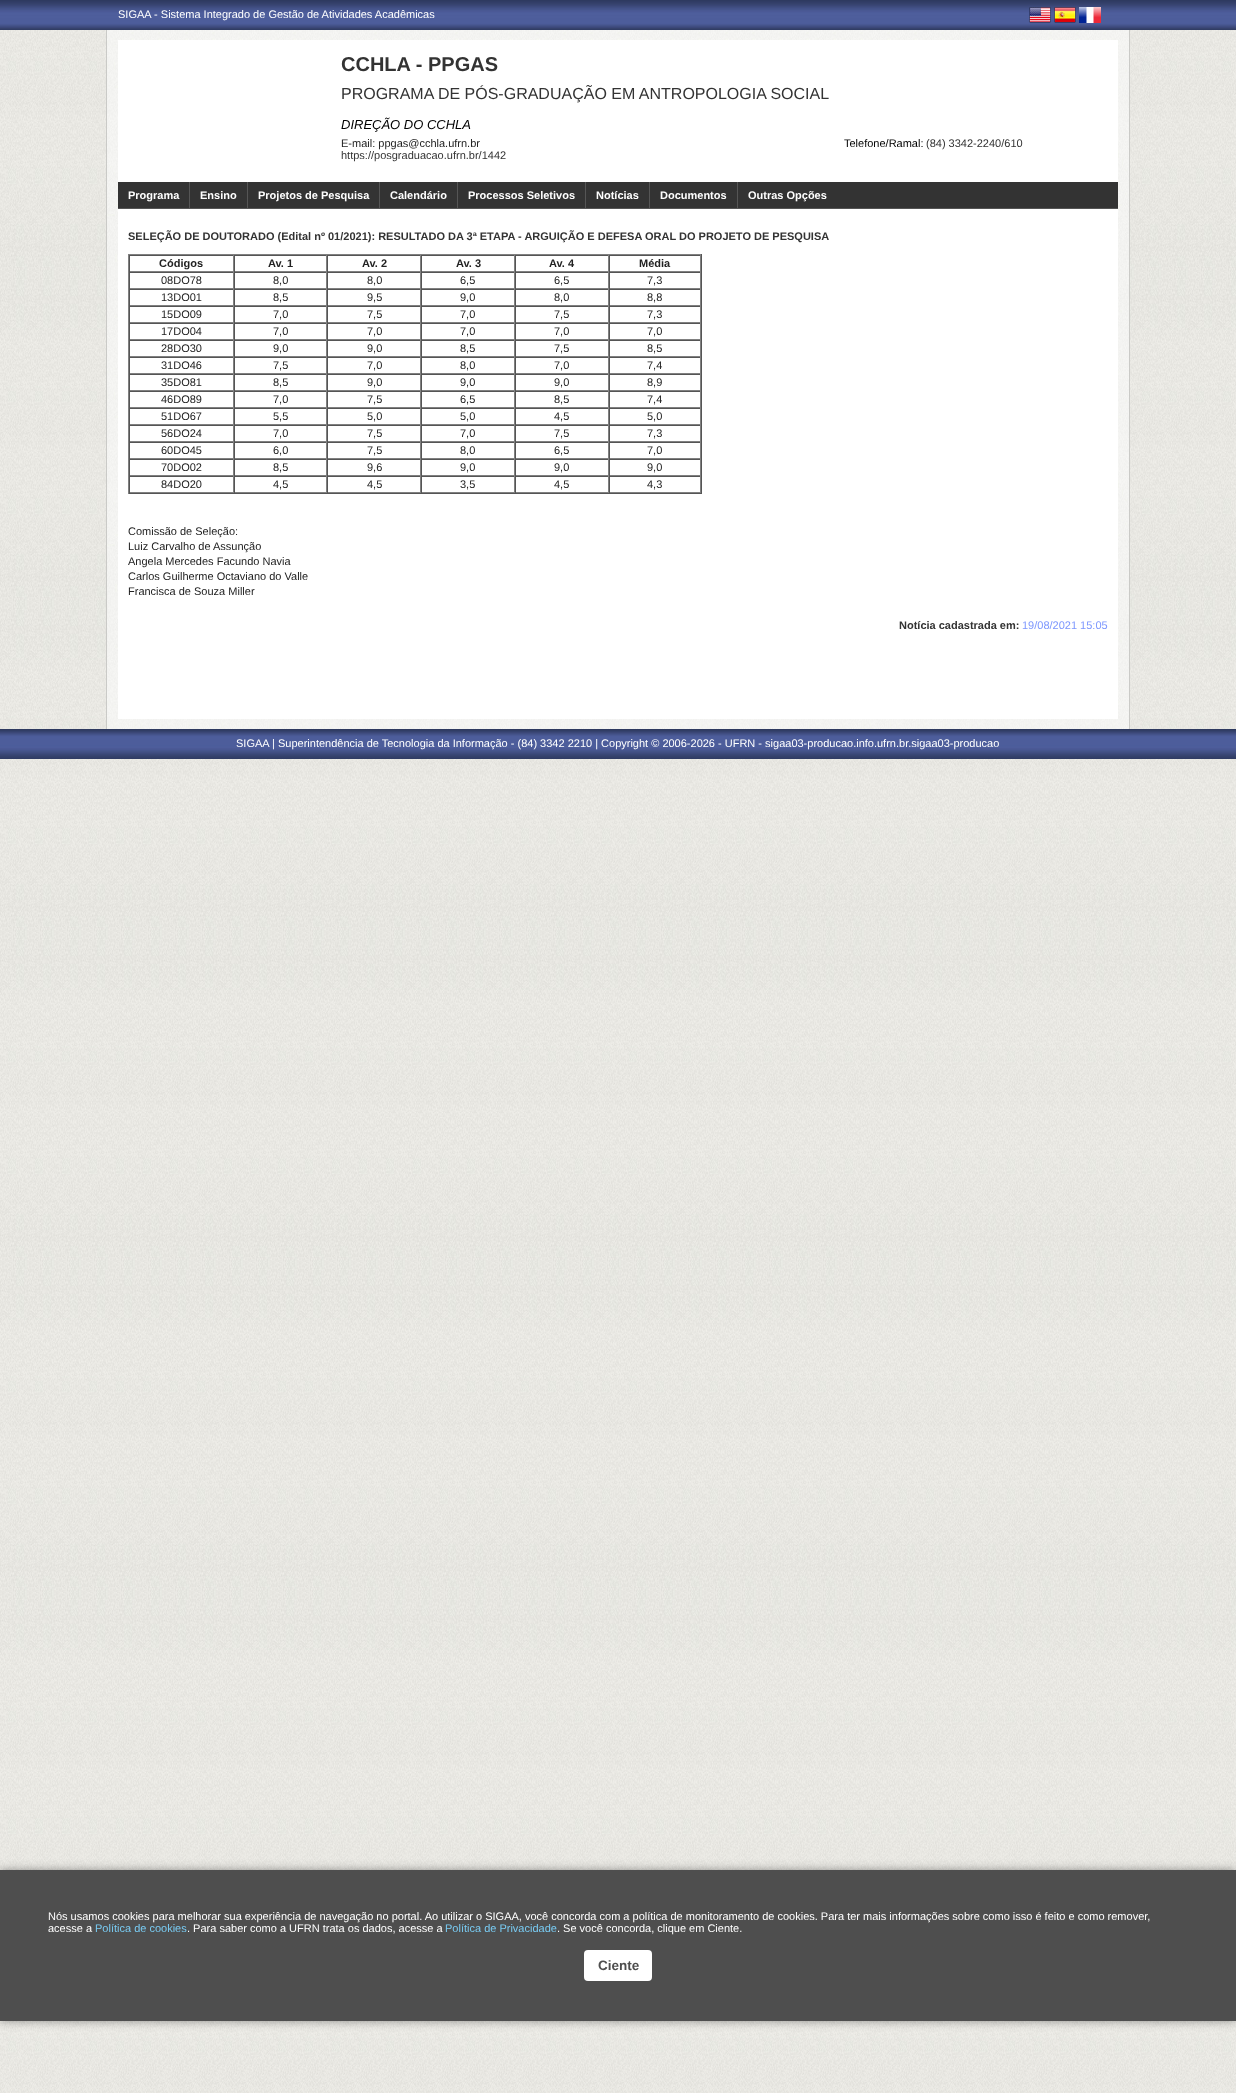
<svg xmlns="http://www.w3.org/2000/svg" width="1236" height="2093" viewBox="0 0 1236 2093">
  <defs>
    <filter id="blur1" x="-50%" y="-200%" width="200%" height="500%"><feGaussianBlur stdDeviation="5"/></filter>
  </defs>
  <rect width="100%" height="100%" fill="#ffffff"/>
  <image x="0" y="30" width="1236" height="2063" href="img1.png"/>
  <image x="0" y="0" width="1236" height="30" href="img2.png"/>
  <image x="0" y="729" width="1236" height="30" href="img3.png"/>
  <text x="118" y="18" font-family="Liberation Sans" font-size="11" fill="#ffffff">SIGAA - Sistema Integrado de Gestão de Atividades Acadêmicas</text>
  <image x="1029" y="7" width="22" height="16" href="img4.png"/>
  <image x="1054" y="7" width="22" height="16" href="img5.png"/>
  <image x="1079" y="7" width="22" height="16" href="img6.png"/>
  <image x="107" y="30" width="1022" height="699" href="img7.png"/>
  <rect x="1129" y="30" width="1" height="699" fill="#cacac7"/>
  <rect x="106" y="30" width="1" height="699" fill="#cacac7"/>
  <rect x="118" y="40" width="1000" height="679" fill="#ffffff"/>
  <text x="341" y="71" font-family="Liberation Sans" font-size="20" font-weight="bold" fill="#333333">CCHLA - PPGAS</text>
  <text x="341" y="99" font-family="Liberation Sans" font-size="16" fill="#333333">PROGRAMA DE PÓS-GRADUAÇÃO EM ANTROPOLOGIA SOCIAL</text>
  <text x="341" y="129" font-family="Liberation Sans" font-size="13" font-style="italic" fill="#000000">DIREÇÃO DO CCHLA</text>
  <text x="341" y="147" font-family="Liberation Sans" font-size="11" fill="#222222">E-mail: ppgas@cchla.ufrn.br</text>
  <text x="844" y="147" font-family="Liberation Sans" font-size="11" fill="#000000">Telefone/Ramal:</text>
  <text x="926" y="147" font-family="Liberation Sans" font-size="11" fill="#333333">(84) 3342-2240/610</text>
  <text x="341" y="159" font-family="Liberation Sans" font-size="11" fill="#333333">https://posgraduacao.ufrn.br/1442</text>
  <rect x="118" y="182" width="1000" height="26" fill="#333333"/>
  <rect x="118" y="208" width="1000" height="1" fill="#555555"/>
  <text x="128" y="199" font-family="Liberation Sans" font-size="11" font-weight="bold" fill="#ffffff">Programa</text>
  <rect x="189" y="182" width="1" height="27" fill="#555555"/>
  <text x="200" y="199" font-family="Liberation Sans" font-size="11" font-weight="bold" fill="#ffffff">Ensino</text>
  <rect x="247" y="182" width="1" height="27" fill="#555555"/>
  <text x="258" y="199" font-family="Liberation Sans" font-size="11" font-weight="bold" fill="#ffffff">Projetos de Pesquisa</text>
  <rect x="379" y="182" width="1" height="27" fill="#555555"/>
  <text x="390" y="199" font-family="Liberation Sans" font-size="11" font-weight="bold" fill="#ffffff">Calendário</text>
  <rect x="457" y="182" width="1" height="27" fill="#555555"/>
  <text x="468" y="199" font-family="Liberation Sans" font-size="11" font-weight="bold" fill="#ffffff">Processos Seletivos</text>
  <rect x="585" y="182" width="1" height="27" fill="#555555"/>
  <text x="596" y="199" font-family="Liberation Sans" font-size="11" font-weight="bold" fill="#ffffff">Notícias</text>
  <rect x="649" y="182" width="1" height="27" fill="#555555"/>
  <text x="660" y="199" font-family="Liberation Sans" font-size="11" font-weight="bold" fill="#ffffff">Documentos</text>
  <rect x="737" y="182" width="1" height="27" fill="#555555"/>
  <text x="748" y="199" font-family="Liberation Sans" font-size="11" font-weight="bold" fill="#ffffff">Outras Opções</text>
  <text x="128" y="240" font-family="Liberation Sans" font-size="11" font-weight="bold" fill="#333333">SELEÇÃO DE DOUTORADO (Edital nº 01/2021): RESULTADO DA 3ª ETAPA - ARGUIÇÃO E DEFESA ORAL DO PROJETO DE PESQUISA</text>
  <rect x="128" y="254" width="574" height="1" fill="#808080"/>
  <rect x="701" y="254" width="1" height="240" fill="#555555"/>
  <rect x="128" y="493" width="574" height="1" fill="#555555"/>
  <rect x="128" y="254" width="1" height="240" fill="#808080"/>
  <rect x="129" y="255" width="572" height="1" fill="#555555"/>
  <rect x="233" y="255" width="1" height="17" fill="#808080"/>
  <rect x="129" y="271" width="105" height="1" fill="#808080"/>
  <rect x="129" y="255" width="1" height="17" fill="#555555"/>
  <text x="159" y="267" font-family="Liberation Sans" font-size="11" font-weight="bold" fill="#222222">Códigos</text>
  <rect x="326" y="255" width="1" height="17" fill="#808080"/>
  <rect x="234" y="271" width="93" height="1" fill="#808080"/>
  <rect x="234" y="255" width="1" height="17" fill="#555555"/>
  <text x="268" y="267" font-family="Liberation Sans" font-size="11" font-weight="bold" fill="#222222">Av. 1</text>
  <rect x="420" y="255" width="1" height="17" fill="#808080"/>
  <rect x="327" y="271" width="94" height="1" fill="#808080"/>
  <rect x="327" y="255" width="1" height="17" fill="#555555"/>
  <text x="362" y="267" font-family="Liberation Sans" font-size="11" font-weight="bold" fill="#222222">Av. 2</text>
  <rect x="514" y="255" width="1" height="17" fill="#808080"/>
  <rect x="421" y="271" width="94" height="1" fill="#808080"/>
  <rect x="421" y="255" width="1" height="17" fill="#555555"/>
  <text x="456" y="267" font-family="Liberation Sans" font-size="11" font-weight="bold" fill="#222222">Av. 3</text>
  <rect x="608" y="255" width="1" height="17" fill="#808080"/>
  <rect x="515" y="271" width="94" height="1" fill="#808080"/>
  <rect x="515" y="255" width="1" height="17" fill="#555555"/>
  <text x="549" y="267" font-family="Liberation Sans" font-size="11" font-weight="bold" fill="#222222">Av. 4</text>
  <rect x="700" y="255" width="1" height="17" fill="#808080"/>
  <rect x="609" y="271" width="92" height="1" fill="#808080"/>
  <rect x="609" y="255" width="1" height="17" fill="#555555"/>
  <text x="639" y="267" font-family="Liberation Sans" font-size="11" font-weight="bold" fill="#222222">Média</text>
  <rect x="129" y="272" width="572" height="1" fill="#555555"/>
  <rect x="233" y="272" width="1" height="17" fill="#808080"/>
  <rect x="129" y="288" width="105" height="1" fill="#808080"/>
  <rect x="129" y="272" width="1" height="17" fill="#555555"/>
  <text x="161" y="284" font-family="Liberation Sans" font-size="11" fill="#222222">08DO78</text>
  <rect x="326" y="272" width="1" height="17" fill="#808080"/>
  <rect x="234" y="288" width="93" height="1" fill="#808080"/>
  <rect x="234" y="272" width="1" height="17" fill="#555555"/>
  <text x="273" y="284" font-family="Liberation Sans" font-size="11" fill="#222222">8,0</text>
  <rect x="420" y="272" width="1" height="17" fill="#808080"/>
  <rect x="327" y="288" width="94" height="1" fill="#808080"/>
  <rect x="327" y="272" width="1" height="17" fill="#555555"/>
  <text x="367" y="284" font-family="Liberation Sans" font-size="11" fill="#222222">8,0</text>
  <rect x="514" y="272" width="1" height="17" fill="#808080"/>
  <rect x="421" y="288" width="94" height="1" fill="#808080"/>
  <rect x="421" y="272" width="1" height="17" fill="#555555"/>
  <text x="460" y="284" font-family="Liberation Sans" font-size="11" fill="#222222">6,5</text>
  <rect x="608" y="272" width="1" height="17" fill="#808080"/>
  <rect x="515" y="288" width="94" height="1" fill="#808080"/>
  <rect x="515" y="272" width="1" height="17" fill="#555555"/>
  <text x="554" y="284" font-family="Liberation Sans" font-size="11" fill="#222222">6,5</text>
  <rect x="700" y="272" width="1" height="17" fill="#808080"/>
  <rect x="609" y="288" width="92" height="1" fill="#808080"/>
  <rect x="609" y="272" width="1" height="17" fill="#555555"/>
  <text x="647" y="284" font-family="Liberation Sans" font-size="11" fill="#222222">7,3</text>
  <rect x="129" y="289" width="572" height="1" fill="#555555"/>
  <rect x="233" y="289" width="1" height="17" fill="#808080"/>
  <rect x="129" y="305" width="105" height="1" fill="#808080"/>
  <rect x="129" y="289" width="1" height="17" fill="#555555"/>
  <text x="161" y="301" font-family="Liberation Sans" font-size="11" fill="#222222">13DO01</text>
  <rect x="326" y="289" width="1" height="17" fill="#808080"/>
  <rect x="234" y="305" width="93" height="1" fill="#808080"/>
  <rect x="234" y="289" width="1" height="17" fill="#555555"/>
  <text x="273" y="301" font-family="Liberation Sans" font-size="11" fill="#222222">8,5</text>
  <rect x="420" y="289" width="1" height="17" fill="#808080"/>
  <rect x="327" y="305" width="94" height="1" fill="#808080"/>
  <rect x="327" y="289" width="1" height="17" fill="#555555"/>
  <text x="367" y="301" font-family="Liberation Sans" font-size="11" fill="#222222">9,5</text>
  <rect x="514" y="289" width="1" height="17" fill="#808080"/>
  <rect x="421" y="305" width="94" height="1" fill="#808080"/>
  <rect x="421" y="289" width="1" height="17" fill="#555555"/>
  <text x="460" y="301" font-family="Liberation Sans" font-size="11" fill="#222222">9,0</text>
  <rect x="608" y="289" width="1" height="17" fill="#808080"/>
  <rect x="515" y="305" width="94" height="1" fill="#808080"/>
  <rect x="515" y="289" width="1" height="17" fill="#555555"/>
  <text x="554" y="301" font-family="Liberation Sans" font-size="11" fill="#222222">8,0</text>
  <rect x="700" y="289" width="1" height="17" fill="#808080"/>
  <rect x="609" y="305" width="92" height="1" fill="#808080"/>
  <rect x="609" y="289" width="1" height="17" fill="#555555"/>
  <text x="647" y="301" font-family="Liberation Sans" font-size="11" fill="#222222">8,8</text>
  <rect x="129" y="306" width="572" height="1" fill="#555555"/>
  <rect x="233" y="306" width="1" height="17" fill="#808080"/>
  <rect x="129" y="322" width="105" height="1" fill="#808080"/>
  <rect x="129" y="306" width="1" height="17" fill="#555555"/>
  <text x="161" y="318" font-family="Liberation Sans" font-size="11" fill="#222222">15DO09</text>
  <rect x="326" y="306" width="1" height="17" fill="#808080"/>
  <rect x="234" y="322" width="93" height="1" fill="#808080"/>
  <rect x="234" y="306" width="1" height="17" fill="#555555"/>
  <text x="273" y="318" font-family="Liberation Sans" font-size="11" fill="#222222">7,0</text>
  <rect x="420" y="306" width="1" height="17" fill="#808080"/>
  <rect x="327" y="322" width="94" height="1" fill="#808080"/>
  <rect x="327" y="306" width="1" height="17" fill="#555555"/>
  <text x="367" y="318" font-family="Liberation Sans" font-size="11" fill="#222222">7,5</text>
  <rect x="514" y="306" width="1" height="17" fill="#808080"/>
  <rect x="421" y="322" width="94" height="1" fill="#808080"/>
  <rect x="421" y="306" width="1" height="17" fill="#555555"/>
  <text x="460" y="318" font-family="Liberation Sans" font-size="11" fill="#222222">7,0</text>
  <rect x="608" y="306" width="1" height="17" fill="#808080"/>
  <rect x="515" y="322" width="94" height="1" fill="#808080"/>
  <rect x="515" y="306" width="1" height="17" fill="#555555"/>
  <text x="554" y="318" font-family="Liberation Sans" font-size="11" fill="#222222">7,5</text>
  <rect x="700" y="306" width="1" height="17" fill="#808080"/>
  <rect x="609" y="322" width="92" height="1" fill="#808080"/>
  <rect x="609" y="306" width="1" height="17" fill="#555555"/>
  <text x="647" y="318" font-family="Liberation Sans" font-size="11" fill="#222222">7,3</text>
  <rect x="129" y="323" width="572" height="1" fill="#555555"/>
  <rect x="233" y="323" width="1" height="17" fill="#808080"/>
  <rect x="129" y="339" width="105" height="1" fill="#808080"/>
  <rect x="129" y="323" width="1" height="17" fill="#555555"/>
  <text x="161" y="335" font-family="Liberation Sans" font-size="11" fill="#222222">17DO04</text>
  <rect x="326" y="323" width="1" height="17" fill="#808080"/>
  <rect x="234" y="339" width="93" height="1" fill="#808080"/>
  <rect x="234" y="323" width="1" height="17" fill="#555555"/>
  <text x="273" y="335" font-family="Liberation Sans" font-size="11" fill="#222222">7,0</text>
  <rect x="420" y="323" width="1" height="17" fill="#808080"/>
  <rect x="327" y="339" width="94" height="1" fill="#808080"/>
  <rect x="327" y="323" width="1" height="17" fill="#555555"/>
  <text x="367" y="335" font-family="Liberation Sans" font-size="11" fill="#222222">7,0</text>
  <rect x="514" y="323" width="1" height="17" fill="#808080"/>
  <rect x="421" y="339" width="94" height="1" fill="#808080"/>
  <rect x="421" y="323" width="1" height="17" fill="#555555"/>
  <text x="460" y="335" font-family="Liberation Sans" font-size="11" fill="#222222">7,0</text>
  <rect x="608" y="323" width="1" height="17" fill="#808080"/>
  <rect x="515" y="339" width="94" height="1" fill="#808080"/>
  <rect x="515" y="323" width="1" height="17" fill="#555555"/>
  <text x="554" y="335" font-family="Liberation Sans" font-size="11" fill="#222222">7,0</text>
  <rect x="700" y="323" width="1" height="17" fill="#808080"/>
  <rect x="609" y="339" width="92" height="1" fill="#808080"/>
  <rect x="609" y="323" width="1" height="17" fill="#555555"/>
  <text x="647" y="335" font-family="Liberation Sans" font-size="11" fill="#222222">7,0</text>
  <rect x="129" y="340" width="572" height="1" fill="#555555"/>
  <rect x="233" y="340" width="1" height="17" fill="#808080"/>
  <rect x="129" y="356" width="105" height="1" fill="#808080"/>
  <rect x="129" y="340" width="1" height="17" fill="#555555"/>
  <text x="161" y="352" font-family="Liberation Sans" font-size="11" fill="#222222">28DO30</text>
  <rect x="326" y="340" width="1" height="17" fill="#808080"/>
  <rect x="234" y="356" width="93" height="1" fill="#808080"/>
  <rect x="234" y="340" width="1" height="17" fill="#555555"/>
  <text x="273" y="352" font-family="Liberation Sans" font-size="11" fill="#222222">9,0</text>
  <rect x="420" y="340" width="1" height="17" fill="#808080"/>
  <rect x="327" y="356" width="94" height="1" fill="#808080"/>
  <rect x="327" y="340" width="1" height="17" fill="#555555"/>
  <text x="367" y="352" font-family="Liberation Sans" font-size="11" fill="#222222">9,0</text>
  <rect x="514" y="340" width="1" height="17" fill="#808080"/>
  <rect x="421" y="356" width="94" height="1" fill="#808080"/>
  <rect x="421" y="340" width="1" height="17" fill="#555555"/>
  <text x="460" y="352" font-family="Liberation Sans" font-size="11" fill="#222222">8,5</text>
  <rect x="608" y="340" width="1" height="17" fill="#808080"/>
  <rect x="515" y="356" width="94" height="1" fill="#808080"/>
  <rect x="515" y="340" width="1" height="17" fill="#555555"/>
  <text x="554" y="352" font-family="Liberation Sans" font-size="11" fill="#222222">7,5</text>
  <rect x="700" y="340" width="1" height="17" fill="#808080"/>
  <rect x="609" y="356" width="92" height="1" fill="#808080"/>
  <rect x="609" y="340" width="1" height="17" fill="#555555"/>
  <text x="647" y="352" font-family="Liberation Sans" font-size="11" fill="#222222">8,5</text>
  <rect x="129" y="357" width="572" height="1" fill="#555555"/>
  <rect x="233" y="357" width="1" height="17" fill="#808080"/>
  <rect x="129" y="373" width="105" height="1" fill="#808080"/>
  <rect x="129" y="357" width="1" height="17" fill="#555555"/>
  <text x="161" y="369" font-family="Liberation Sans" font-size="11" fill="#222222">31DO46</text>
  <rect x="326" y="357" width="1" height="17" fill="#808080"/>
  <rect x="234" y="373" width="93" height="1" fill="#808080"/>
  <rect x="234" y="357" width="1" height="17" fill="#555555"/>
  <text x="273" y="369" font-family="Liberation Sans" font-size="11" fill="#222222">7,5</text>
  <rect x="420" y="357" width="1" height="17" fill="#808080"/>
  <rect x="327" y="373" width="94" height="1" fill="#808080"/>
  <rect x="327" y="357" width="1" height="17" fill="#555555"/>
  <text x="367" y="369" font-family="Liberation Sans" font-size="11" fill="#222222">7,0</text>
  <rect x="514" y="357" width="1" height="17" fill="#808080"/>
  <rect x="421" y="373" width="94" height="1" fill="#808080"/>
  <rect x="421" y="357" width="1" height="17" fill="#555555"/>
  <text x="460" y="369" font-family="Liberation Sans" font-size="11" fill="#222222">8,0</text>
  <rect x="608" y="357" width="1" height="17" fill="#808080"/>
  <rect x="515" y="373" width="94" height="1" fill="#808080"/>
  <rect x="515" y="357" width="1" height="17" fill="#555555"/>
  <text x="554" y="369" font-family="Liberation Sans" font-size="11" fill="#222222">7,0</text>
  <rect x="700" y="357" width="1" height="17" fill="#808080"/>
  <rect x="609" y="373" width="92" height="1" fill="#808080"/>
  <rect x="609" y="357" width="1" height="17" fill="#555555"/>
  <text x="647" y="369" font-family="Liberation Sans" font-size="11" fill="#222222">7,4</text>
  <rect x="129" y="374" width="572" height="1" fill="#555555"/>
  <rect x="233" y="374" width="1" height="17" fill="#808080"/>
  <rect x="129" y="390" width="105" height="1" fill="#808080"/>
  <rect x="129" y="374" width="1" height="17" fill="#555555"/>
  <text x="161" y="386" font-family="Liberation Sans" font-size="11" fill="#222222">35DO81</text>
  <rect x="326" y="374" width="1" height="17" fill="#808080"/>
  <rect x="234" y="390" width="93" height="1" fill="#808080"/>
  <rect x="234" y="374" width="1" height="17" fill="#555555"/>
  <text x="273" y="386" font-family="Liberation Sans" font-size="11" fill="#222222">8,5</text>
  <rect x="420" y="374" width="1" height="17" fill="#808080"/>
  <rect x="327" y="390" width="94" height="1" fill="#808080"/>
  <rect x="327" y="374" width="1" height="17" fill="#555555"/>
  <text x="367" y="386" font-family="Liberation Sans" font-size="11" fill="#222222">9,0</text>
  <rect x="514" y="374" width="1" height="17" fill="#808080"/>
  <rect x="421" y="390" width="94" height="1" fill="#808080"/>
  <rect x="421" y="374" width="1" height="17" fill="#555555"/>
  <text x="460" y="386" font-family="Liberation Sans" font-size="11" fill="#222222">9,0</text>
  <rect x="608" y="374" width="1" height="17" fill="#808080"/>
  <rect x="515" y="390" width="94" height="1" fill="#808080"/>
  <rect x="515" y="374" width="1" height="17" fill="#555555"/>
  <text x="554" y="386" font-family="Liberation Sans" font-size="11" fill="#222222">9,0</text>
  <rect x="700" y="374" width="1" height="17" fill="#808080"/>
  <rect x="609" y="390" width="92" height="1" fill="#808080"/>
  <rect x="609" y="374" width="1" height="17" fill="#555555"/>
  <text x="647" y="386" font-family="Liberation Sans" font-size="11" fill="#222222">8,9</text>
  <rect x="129" y="391" width="572" height="1" fill="#555555"/>
  <rect x="233" y="391" width="1" height="17" fill="#808080"/>
  <rect x="129" y="407" width="105" height="1" fill="#808080"/>
  <rect x="129" y="391" width="1" height="17" fill="#555555"/>
  <text x="161" y="403" font-family="Liberation Sans" font-size="11" fill="#222222">46DO89</text>
  <rect x="326" y="391" width="1" height="17" fill="#808080"/>
  <rect x="234" y="407" width="93" height="1" fill="#808080"/>
  <rect x="234" y="391" width="1" height="17" fill="#555555"/>
  <text x="273" y="403" font-family="Liberation Sans" font-size="11" fill="#222222">7,0</text>
  <rect x="420" y="391" width="1" height="17" fill="#808080"/>
  <rect x="327" y="407" width="94" height="1" fill="#808080"/>
  <rect x="327" y="391" width="1" height="17" fill="#555555"/>
  <text x="367" y="403" font-family="Liberation Sans" font-size="11" fill="#222222">7,5</text>
  <rect x="514" y="391" width="1" height="17" fill="#808080"/>
  <rect x="421" y="407" width="94" height="1" fill="#808080"/>
  <rect x="421" y="391" width="1" height="17" fill="#555555"/>
  <text x="460" y="403" font-family="Liberation Sans" font-size="11" fill="#222222">6,5</text>
  <rect x="608" y="391" width="1" height="17" fill="#808080"/>
  <rect x="515" y="407" width="94" height="1" fill="#808080"/>
  <rect x="515" y="391" width="1" height="17" fill="#555555"/>
  <text x="554" y="403" font-family="Liberation Sans" font-size="11" fill="#222222">8,5</text>
  <rect x="700" y="391" width="1" height="17" fill="#808080"/>
  <rect x="609" y="407" width="92" height="1" fill="#808080"/>
  <rect x="609" y="391" width="1" height="17" fill="#555555"/>
  <text x="647" y="403" font-family="Liberation Sans" font-size="11" fill="#222222">7,4</text>
  <rect x="129" y="408" width="572" height="1" fill="#555555"/>
  <rect x="233" y="408" width="1" height="17" fill="#808080"/>
  <rect x="129" y="424" width="105" height="1" fill="#808080"/>
  <rect x="129" y="408" width="1" height="17" fill="#555555"/>
  <text x="161" y="420" font-family="Liberation Sans" font-size="11" fill="#222222">51DO67</text>
  <rect x="326" y="408" width="1" height="17" fill="#808080"/>
  <rect x="234" y="424" width="93" height="1" fill="#808080"/>
  <rect x="234" y="408" width="1" height="17" fill="#555555"/>
  <text x="273" y="420" font-family="Liberation Sans" font-size="11" fill="#222222">5,5</text>
  <rect x="420" y="408" width="1" height="17" fill="#808080"/>
  <rect x="327" y="424" width="94" height="1" fill="#808080"/>
  <rect x="327" y="408" width="1" height="17" fill="#555555"/>
  <text x="367" y="420" font-family="Liberation Sans" font-size="11" fill="#222222">5,0</text>
  <rect x="514" y="408" width="1" height="17" fill="#808080"/>
  <rect x="421" y="424" width="94" height="1" fill="#808080"/>
  <rect x="421" y="408" width="1" height="17" fill="#555555"/>
  <text x="460" y="420" font-family="Liberation Sans" font-size="11" fill="#222222">5,0</text>
  <rect x="608" y="408" width="1" height="17" fill="#808080"/>
  <rect x="515" y="424" width="94" height="1" fill="#808080"/>
  <rect x="515" y="408" width="1" height="17" fill="#555555"/>
  <text x="554" y="420" font-family="Liberation Sans" font-size="11" fill="#222222">4,5</text>
  <rect x="700" y="408" width="1" height="17" fill="#808080"/>
  <rect x="609" y="424" width="92" height="1" fill="#808080"/>
  <rect x="609" y="408" width="1" height="17" fill="#555555"/>
  <text x="647" y="420" font-family="Liberation Sans" font-size="11" fill="#222222">5,0</text>
  <rect x="129" y="425" width="572" height="1" fill="#555555"/>
  <rect x="233" y="425" width="1" height="17" fill="#808080"/>
  <rect x="129" y="441" width="105" height="1" fill="#808080"/>
  <rect x="129" y="425" width="1" height="17" fill="#555555"/>
  <text x="161" y="437" font-family="Liberation Sans" font-size="11" fill="#222222">56DO24</text>
  <rect x="326" y="425" width="1" height="17" fill="#808080"/>
  <rect x="234" y="441" width="93" height="1" fill="#808080"/>
  <rect x="234" y="425" width="1" height="17" fill="#555555"/>
  <text x="273" y="437" font-family="Liberation Sans" font-size="11" fill="#222222">7,0</text>
  <rect x="420" y="425" width="1" height="17" fill="#808080"/>
  <rect x="327" y="441" width="94" height="1" fill="#808080"/>
  <rect x="327" y="425" width="1" height="17" fill="#555555"/>
  <text x="367" y="437" font-family="Liberation Sans" font-size="11" fill="#222222">7,5</text>
  <rect x="514" y="425" width="1" height="17" fill="#808080"/>
  <rect x="421" y="441" width="94" height="1" fill="#808080"/>
  <rect x="421" y="425" width="1" height="17" fill="#555555"/>
  <text x="460" y="437" font-family="Liberation Sans" font-size="11" fill="#222222">7,0</text>
  <rect x="608" y="425" width="1" height="17" fill="#808080"/>
  <rect x="515" y="441" width="94" height="1" fill="#808080"/>
  <rect x="515" y="425" width="1" height="17" fill="#555555"/>
  <text x="554" y="437" font-family="Liberation Sans" font-size="11" fill="#222222">7,5</text>
  <rect x="700" y="425" width="1" height="17" fill="#808080"/>
  <rect x="609" y="441" width="92" height="1" fill="#808080"/>
  <rect x="609" y="425" width="1" height="17" fill="#555555"/>
  <text x="647" y="437" font-family="Liberation Sans" font-size="11" fill="#222222">7,3</text>
  <rect x="129" y="442" width="572" height="1" fill="#555555"/>
  <rect x="233" y="442" width="1" height="17" fill="#808080"/>
  <rect x="129" y="458" width="105" height="1" fill="#808080"/>
  <rect x="129" y="442" width="1" height="17" fill="#555555"/>
  <text x="161" y="454" font-family="Liberation Sans" font-size="11" fill="#222222">60DO45</text>
  <rect x="326" y="442" width="1" height="17" fill="#808080"/>
  <rect x="234" y="458" width="93" height="1" fill="#808080"/>
  <rect x="234" y="442" width="1" height="17" fill="#555555"/>
  <text x="273" y="454" font-family="Liberation Sans" font-size="11" fill="#222222">6,0</text>
  <rect x="420" y="442" width="1" height="17" fill="#808080"/>
  <rect x="327" y="458" width="94" height="1" fill="#808080"/>
  <rect x="327" y="442" width="1" height="17" fill="#555555"/>
  <text x="367" y="454" font-family="Liberation Sans" font-size="11" fill="#222222">7,5</text>
  <rect x="514" y="442" width="1" height="17" fill="#808080"/>
  <rect x="421" y="458" width="94" height="1" fill="#808080"/>
  <rect x="421" y="442" width="1" height="17" fill="#555555"/>
  <text x="460" y="454" font-family="Liberation Sans" font-size="11" fill="#222222">8,0</text>
  <rect x="608" y="442" width="1" height="17" fill="#808080"/>
  <rect x="515" y="458" width="94" height="1" fill="#808080"/>
  <rect x="515" y="442" width="1" height="17" fill="#555555"/>
  <text x="554" y="454" font-family="Liberation Sans" font-size="11" fill="#222222">6,5</text>
  <rect x="700" y="442" width="1" height="17" fill="#808080"/>
  <rect x="609" y="458" width="92" height="1" fill="#808080"/>
  <rect x="609" y="442" width="1" height="17" fill="#555555"/>
  <text x="647" y="454" font-family="Liberation Sans" font-size="11" fill="#222222">7,0</text>
  <rect x="129" y="459" width="572" height="1" fill="#555555"/>
  <rect x="233" y="459" width="1" height="17" fill="#808080"/>
  <rect x="129" y="475" width="105" height="1" fill="#808080"/>
  <rect x="129" y="459" width="1" height="17" fill="#555555"/>
  <text x="161" y="471" font-family="Liberation Sans" font-size="11" fill="#222222">70DO02</text>
  <rect x="326" y="459" width="1" height="17" fill="#808080"/>
  <rect x="234" y="475" width="93" height="1" fill="#808080"/>
  <rect x="234" y="459" width="1" height="17" fill="#555555"/>
  <text x="273" y="471" font-family="Liberation Sans" font-size="11" fill="#222222">8,5</text>
  <rect x="420" y="459" width="1" height="17" fill="#808080"/>
  <rect x="327" y="475" width="94" height="1" fill="#808080"/>
  <rect x="327" y="459" width="1" height="17" fill="#555555"/>
  <text x="367" y="471" font-family="Liberation Sans" font-size="11" fill="#222222">9,6</text>
  <rect x="514" y="459" width="1" height="17" fill="#808080"/>
  <rect x="421" y="475" width="94" height="1" fill="#808080"/>
  <rect x="421" y="459" width="1" height="17" fill="#555555"/>
  <text x="460" y="471" font-family="Liberation Sans" font-size="11" fill="#222222">9,0</text>
  <rect x="608" y="459" width="1" height="17" fill="#808080"/>
  <rect x="515" y="475" width="94" height="1" fill="#808080"/>
  <rect x="515" y="459" width="1" height="17" fill="#555555"/>
  <text x="554" y="471" font-family="Liberation Sans" font-size="11" fill="#222222">9,0</text>
  <rect x="700" y="459" width="1" height="17" fill="#808080"/>
  <rect x="609" y="475" width="92" height="1" fill="#808080"/>
  <rect x="609" y="459" width="1" height="17" fill="#555555"/>
  <text x="647" y="471" font-family="Liberation Sans" font-size="11" fill="#222222">9,0</text>
  <rect x="129" y="476" width="572" height="1" fill="#555555"/>
  <rect x="233" y="476" width="1" height="17" fill="#808080"/>
  <rect x="129" y="492" width="105" height="1" fill="#808080"/>
  <rect x="129" y="476" width="1" height="17" fill="#555555"/>
  <text x="161" y="488" font-family="Liberation Sans" font-size="11" fill="#222222">84DO20</text>
  <rect x="326" y="476" width="1" height="17" fill="#808080"/>
  <rect x="234" y="492" width="93" height="1" fill="#808080"/>
  <rect x="234" y="476" width="1" height="17" fill="#555555"/>
  <text x="273" y="488" font-family="Liberation Sans" font-size="11" fill="#222222">4,5</text>
  <rect x="420" y="476" width="1" height="17" fill="#808080"/>
  <rect x="327" y="492" width="94" height="1" fill="#808080"/>
  <rect x="327" y="476" width="1" height="17" fill="#555555"/>
  <text x="367" y="488" font-family="Liberation Sans" font-size="11" fill="#222222">4,5</text>
  <rect x="514" y="476" width="1" height="17" fill="#808080"/>
  <rect x="421" y="492" width="94" height="1" fill="#808080"/>
  <rect x="421" y="476" width="1" height="17" fill="#555555"/>
  <text x="460" y="488" font-family="Liberation Sans" font-size="11" fill="#222222">3,5</text>
  <rect x="608" y="476" width="1" height="17" fill="#808080"/>
  <rect x="515" y="492" width="94" height="1" fill="#808080"/>
  <rect x="515" y="476" width="1" height="17" fill="#555555"/>
  <text x="554" y="488" font-family="Liberation Sans" font-size="11" fill="#222222">4,5</text>
  <rect x="700" y="476" width="1" height="17" fill="#808080"/>
  <rect x="609" y="492" width="92" height="1" fill="#808080"/>
  <rect x="609" y="476" width="1" height="17" fill="#555555"/>
  <text x="647" y="488" font-family="Liberation Sans" font-size="11" fill="#222222">4,3</text>
  <text x="128" y="535" font-family="Liberation Sans" font-size="11" fill="#222222">Comissão de Seleção:</text>
  <text x="128" y="550" font-family="Liberation Sans" font-size="11" fill="#222222">Luiz Carvalho de Assunção</text>
  <text x="128" y="565" font-family="Liberation Sans" font-size="11" fill="#222222">Angela Mercedes Facundo Navia</text>
  <text x="128" y="580" font-family="Liberation Sans" font-size="11" fill="#222222">Carlos Guilherme Octaviano do Valle</text>
  <text x="128" y="595" font-family="Liberation Sans" font-size="11" fill="#222222">Francisca de Souza Miller</text>
  <text x="899" y="629" font-family="Liberation Sans" font-size="11" font-weight="bold" fill="#333333">Notícia cadastrada em:</text>
  <text x="1022" y="629" font-family="Liberation Sans" font-size="11" fill="#7d97fe">19/08/2021 15:05</text>
  <text x="236" y="747" font-family="Liberation Sans" font-size="11" fill="#ffffff">SIGAA | Superintendência de Tecnologia da Informação - (84) 3342 2210 | Copyright © 2006-2026 - UFRN - sigaa03-producao.info.ufrn.br.sigaa03-producao</text>
  <rect x="0" y="1870" width="1236" height="151" fill="#000000" fill-opacity="0.4" filter="url(#blur1)"/>
  <rect x="0" y="1870" width="1236" height="151" fill="#4e4e4e"/>
  <text x="48" y="1920" font-family="Liberation Sans" font-size="11" fill="#ffffff">Nós usamos cookies para melhorar sua experiência de navegação no portal. Ao utilizar o SIGAA, você concorda com a política de monitoramento de cookies. Para ter mais informações sobre como isso é feito e como remover,</text>
  <text x="48" y="1932" font-family="Liberation Sans" font-size="11" fill="#ffffff">acesse a</text>
  <text x="95" y="1932" font-family="Liberation Sans" font-size="11" fill="#79cbf2">Política de cookies</text>
  <text x="187" y="1932" font-family="Liberation Sans" font-size="11" fill="#ffffff">. Para saber como a UFRN trata os dados, acesse a</text>
  <text x="445" y="1932" font-family="Liberation Sans" font-size="11" fill="#79cbf2">Política de Privacidade</text>
  <text x="557" y="1932" font-family="Liberation Sans" font-size="11" fill="#ffffff">. Se você concorda, clique em Ciente.</text>
  <rect x="584" y="1950" width="68" height="31" rx="4" fill="#ffffff"/>
  <text x="598" y="1970" font-family="Liberation Sans" font-size="13.5" font-weight="bold" fill="#4e4e4e">Ciente</text>
</svg>
